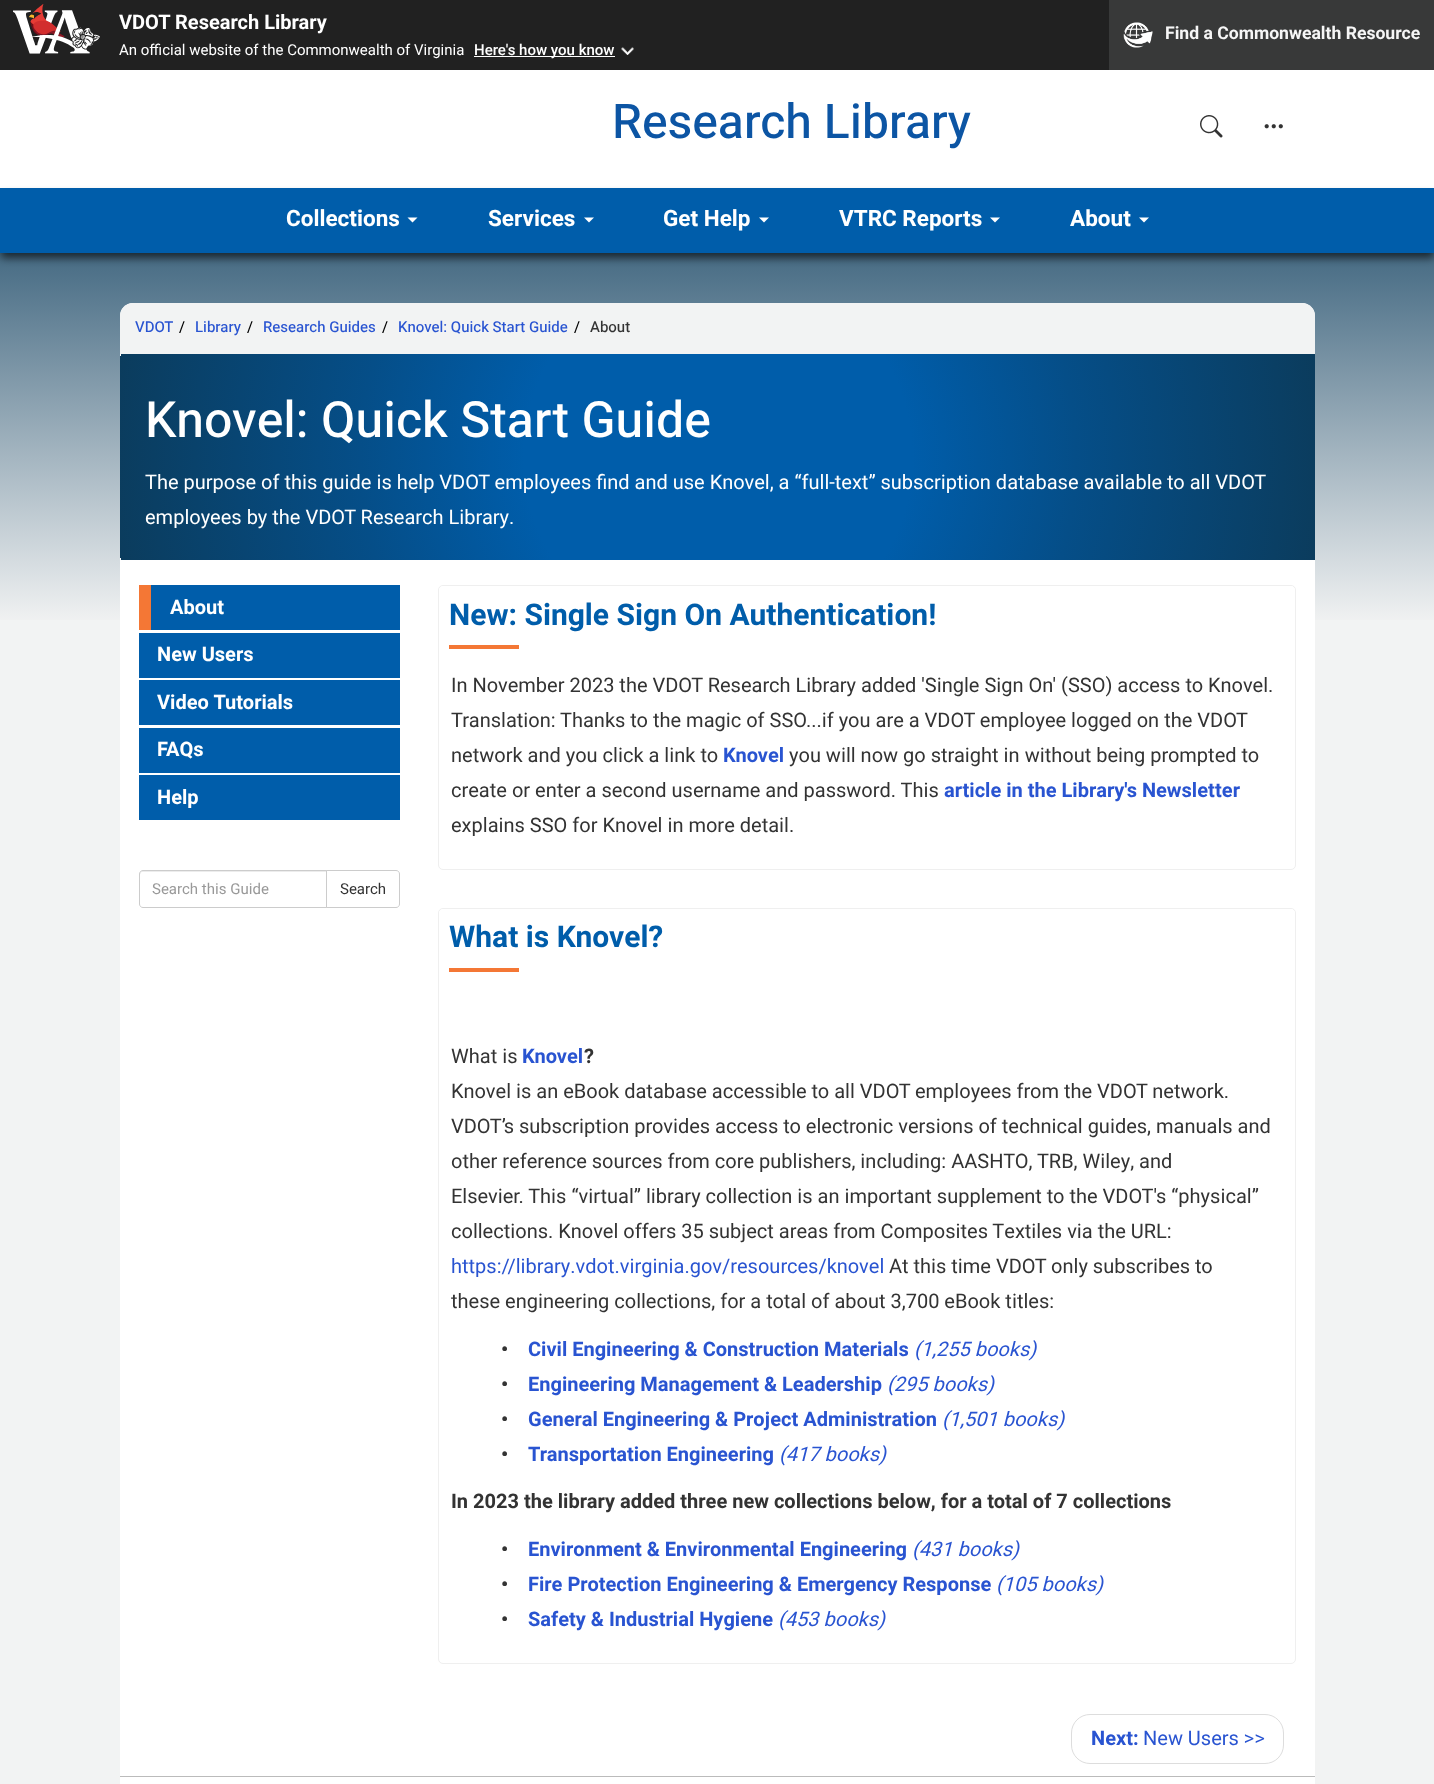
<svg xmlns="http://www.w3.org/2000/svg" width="1434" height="1784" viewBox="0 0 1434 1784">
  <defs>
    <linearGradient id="g1" gradientUnits="userSpaceOnUse" x1="718" y1="125" x2="718" y2="625"><stop offset="0" stop-color="#0b3c5d"/><stop offset="1" stop-color="#f2f3f3"/></linearGradient>
    <filter id="blur1" x="-50%" y="-200%" width="200%" height="500%"><feGaussianBlur stdDeviation="4.5"/></filter>
    <radialGradient id="g2" gradientUnits="userSpaceOnUse" cx="718" cy="457" r="606"><stop offset="0.32" stop-color="#005daa"/><stop offset="0.59" stop-color="#054e88"/><stop offset="1" stop-color="#0b3c5d"/><stop offset="1" stop-color="#ffffff"/></radialGradient>
  </defs>
  <rect width="100%" height="100%" fill="#f2f3f3"/>
  <rect x="0" y="70" width="1434" height="118" fill="#ffffff"/>
  <rect x="0" y="0" width="1109" height="70" fill="#212121"/>
  <image x="13" y="4" width="87" height="50" href="img1.png"/>
  <text x="119" y="29" font-family="Roboto" font-size="20" font-weight="bold" fill="#ffffff">VDOT Research Library</text>
  <text x="119" y="55" font-family="Roboto" font-size="15" fill="#ffffff">An official website of the Commonwealth of Virginia</text>
  <rect x="474" y="56" width="141" height="1" fill="#ffffff"/>
  <text x="474" y="55" font-family="Roboto" font-size="15" font-weight="500" fill="#ffffff">Here's how you know</text>
  <image x="621" y="47" width="13" height="8" href="img2.png"/>
  <rect x="1109" y="0" width="325" height="70" fill="#383939"/>
  <image x="1123" y="22" width="30" height="26" href="img3.png"/>
  <text x="1165" y="39" font-family="Roboto" font-size="17.6" font-weight="bold" fill="#f6f6f6">Find a Commonwealth Resource</text>
  <text x="612" y="138" font-family="Heebo" font-size="48" font-weight="500" fill="#0c55a4">Research Library</text>
  <image x="1200" y="115" width="23" height="23" href="img4.png"/>
  <image x="1264" y="124" width="19" height="5" href="img5.png"/>
  <rect x="0" y="253" width="1434" height="367" fill="url(#g1)"/>
  <rect x="1" y="195" width="1433" height="63" fill="#000000" fill-opacity="0.64" filter="url(#blur1)"/>
  <rect x="0" y="188" width="1434" height="65" fill="#005daa"/>
  <text x="286" y="226" font-family="Heebo" font-size="22.5" font-weight="bold" fill="#ffffff">Collections</text>
  <path d="M407.5 217.5H417.5L412.5 222.5Z" fill="#ffffff"/>
  <text x="488" y="226" font-family="Heebo" font-size="22.5" font-weight="bold" fill="#ffffff">Services</text>
  <path d="M584 217.5H594L589 222.5Z" fill="#ffffff"/>
  <text x="663" y="226" font-family="Heebo" font-size="22.5" font-weight="bold" fill="#ffffff">Get Help</text>
  <path d="M759 217.5H769L764 222.5Z" fill="#ffffff"/>
  <text x="839" y="226" font-family="Heebo" font-size="22.5" font-weight="bold" fill="#ffffff">VTRC Reports</text>
  <path d="M990 217.5H1000L995 222.5Z" fill="#ffffff"/>
  <text x="1070" y="226" font-family="Heebo" font-size="22.5" font-weight="bold" fill="#ffffff">About</text>
  <path d="M1139 217.5H1149L1144 222.5Z" fill="#ffffff"/>
  <rect x="120" y="303" width="1195" height="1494" rx="13" fill="#ffffff"/>
  <path d="M133 303H1302C1309 303 1315 309 1315 316V354H120V316C120 309 126 303 133 303Z" fill="#f2f3f3"/>
  <text x="135" y="332" font-family="Heebo" font-size="15" font-weight="500" fill="#2954d1">VDOT</text>
  <text x="179" y="332" font-family="Heebo" font-size="15" font-weight="500" fill="#000000">/</text>
  <text x="195" y="332" font-family="Heebo" font-size="15" font-weight="500" fill="#2954d1">Library</text>
  <text x="247" y="332" font-family="Heebo" font-size="15" font-weight="500" fill="#000000">/</text>
  <text x="263" y="332" font-family="Heebo" font-size="15" font-weight="500" fill="#2954d1">Research Guides</text>
  <text x="382" y="332" font-family="Heebo" font-size="15" font-weight="500" fill="#000000">/</text>
  <text x="398" y="332" font-family="Heebo" font-size="15" font-weight="500" fill="#2954d1">Knovel: Quick Start Guide</text>
  <text x="574" y="332" font-family="Heebo" font-size="15" font-weight="500" fill="#000000">/</text>
  <text x="590" y="332" font-family="Heebo" font-size="15" font-weight="500" fill="#333333">About</text>
  <rect x="120" y="354" width="1195" height="206" fill="url(#g2)"/>
  <text x="145" y="437" font-family="Heebo" font-size="50" font-weight="500" fill="#ffffff">Knovel: Quick Start Guide</text>
  <text x="145" y="489" font-family="Heebo" font-size="20" fill="#ffffff">The purpose of this guide is help VDOT employees find and use Knovel, a “full-text” subscription database available to all VDOT</text>
  <text x="145" y="524" font-family="Heebo" font-size="20" fill="#ffffff">employees by the VDOT Research Library.</text>
  <rect x="151" y="585" width="249" height="45" fill="#005daa"/>
  <rect x="139" y="585" width="12" height="45" fill="#f47735"/>
  <text x="170" y="614" font-family="Heebo" font-size="20" font-weight="bold" fill="#ffffff">About</text>
  <rect x="139" y="633" width="261" height="45" fill="#005daa"/>
  <text x="157" y="661" font-family="Heebo" font-size="20" font-weight="bold" fill="#ffffff">New Users</text>
  <rect x="139" y="680" width="261" height="45" fill="#005daa"/>
  <text x="157" y="709" font-family="Heebo" font-size="20" font-weight="bold" fill="#ffffff">Video Tutorials</text>
  <rect x="139" y="728" width="261" height="45" fill="#005daa"/>
  <text x="157" y="756" font-family="Heebo" font-size="20" font-weight="bold" fill="#ffffff">FAQs</text>
  <rect x="139" y="775" width="261" height="45" fill="#005daa"/>
  <text x="157" y="804" font-family="Heebo" font-size="20" font-weight="bold" fill="#ffffff">Help</text>
  <path d="M142 872H326V871H142C140 871 140 873 140 875C140 874 141 872 142 872Z" fill="#ececec"/>
  <path d="M143 870.5H327.5V907.5H143C141 907.5 139.5 906 139.5 904V874C139.5 872 141 870.5 143 870.5Z" fill="none" stroke="#cccccc"/>
  <text x="152" y="894" font-family="Heebo" font-size="15" fill="#999999">Search this Guide</text>
  <path d="M326.5 870.5H396C398 870.5 399.5 872 399.5 874V904C399.5 906 398 907.5 396 907.5H326.5Z" fill="#ffffff" stroke="#cccccc"/>
  <text x="340" y="894" font-family="Heebo" font-size="15" fill="#333333">Search</text>
  <rect x="438.5" y="585.5" width="857" height="284" rx="4.5" fill="none" stroke="#efefef"/>
  <path d="M443 586H1291C1293 586 1295 588 1295 590V656H439V590C439 588 441 586 443 586Z" fill="#ffffff"/>
  <text x="449" y="625" font-family="Heebo" font-size="30" font-weight="bold" fill="#005daa">New: Single Sign On Authentication!</text>
  <rect x="449" y="645" width="70" height="4" fill="#f47735"/>
  <text x="451" y="692" font-family="Heebo" font-size="20" fill="#333333">In November 2023 the VDOT Research Library added 'Single Sign On' (SSO) access to Knovel.</text>
  <text x="451" y="727" font-family="Heebo" font-size="20" fill="#333333">Translation: Thanks to the magic of SSO...if you are a VDOT employee logged on the VDOT</text>
  <text x="451" y="762" font-family="Heebo" font-size="20" fill="#333333">network and you click a link to</text>
  <text x="723" y="762" font-family="Heebo" font-size="20" font-weight="bold" fill="#2954d1">Knovel</text>
  <text x="789" y="762" font-family="Heebo" font-size="20" fill="#333333">you will now go straight in without being prompted to</text>
  <text x="451" y="797" font-family="Heebo" font-size="20" fill="#333333">create or enter a second username and password. This</text>
  <text x="944" y="797" font-family="Heebo" font-size="20" font-weight="bold" fill="#2954d1">article in the Library's Newsletter</text>
  <text x="451" y="832" font-family="Heebo" font-size="20" fill="#333333">explains SSO for Knovel in more detail.</text>
  <rect x="438.5" y="908.5" width="857" height="755" rx="4.5" fill="none" stroke="#efefef"/>
  <path d="M443 909H1291C1293 909 1295 911 1295 913V979H439V913C439 911 441 909 443 909Z" fill="#ffffff"/>
  <text x="449" y="947" font-family="Heebo" font-size="30" font-weight="bold" fill="#005daa">What is Knovel?</text>
  <rect x="449" y="968" width="70" height="4" fill="#f47735"/>
  <text x="451" y="1063" font-family="Heebo" font-size="20" fill="#333333">What is</text>
  <text x="522" y="1063" font-family="Heebo" font-size="20" font-weight="bold" fill="#2954d1">Knovel</text>
  <text x="584" y="1063" font-family="Heebo" font-size="20" font-weight="bold" fill="#333333">?</text>
  <text x="451" y="1098" font-family="Heebo" font-size="20" fill="#333333">Knovel is an eBook database accessible to all VDOT employees from the VDOT network.</text>
  <text x="451" y="1133" font-family="Heebo" font-size="20" fill="#333333">VDOT’s subscription provides access to electronic versions of technical guides, manuals and</text>
  <text x="451" y="1168" font-family="Heebo" font-size="20" fill="#333333">other reference sources from core publishers, including: AASHTO, TRB, Wiley, and</text>
  <text x="451" y="1203" font-family="Heebo" font-size="20" fill="#333333">Elsevier. This “virtual” library collection is an important supplement to the VDOT's “physical”</text>
  <text x="451" y="1238" font-family="Heebo" font-size="20" fill="#333333">collections. Knovel offers 35 subject areas from Composites Textiles via the URL:</text>
  <text x="451" y="1273" font-family="Heebo" font-size="20" fill="#2954d1">https://library.vdot.virginia.gov/resources/knovel</text>
  <text x="889" y="1273" font-family="Heebo" font-size="20" fill="#333333">At this time VDOT only subscribes to</text>
  <text x="451" y="1308" font-family="Heebo" font-size="20" fill="#333333">these engineering collections, for a total of about 3,700 eBook titles:</text>
  <text x="501" y="1356" font-family="Heebo" font-size="20" font-weight="bold" fill="#333333">•</text>
  <text x="528" y="1356" font-family="Heebo" font-size="20" font-weight="bold" fill="#2954d1">Civil Engineering &amp; Construction Materials</text>
  <text x="914" y="1356" font-family="Heebo" font-size="20" font-style="italic" fill="#2954d1">(1,255 books)</text>
  <text x="501" y="1391" font-family="Heebo" font-size="20" font-weight="bold" fill="#333333">•</text>
  <text x="528" y="1391" font-family="Heebo" font-size="20" font-weight="bold" fill="#2954d1">Engineering Management &amp; Leadership</text>
  <text x="887" y="1391" font-family="Heebo" font-size="20" font-style="italic" fill="#2954d1">(295 books)</text>
  <text x="501" y="1426" font-family="Heebo" font-size="20" font-weight="bold" fill="#333333">•</text>
  <text x="528" y="1426" font-family="Heebo" font-size="20" font-weight="bold" fill="#2954d1">General Engineering &amp; Project Administration</text>
  <text x="942" y="1426" font-family="Heebo" font-size="20" font-style="italic" fill="#2954d1">(1,501 books)</text>
  <text x="501" y="1461" font-family="Heebo" font-size="20" font-weight="bold" fill="#333333">•</text>
  <text x="528" y="1461" font-family="Heebo" font-size="20" font-weight="bold" fill="#2954d1">Transportation Engineering</text>
  <text x="779" y="1461" font-family="Heebo" font-size="20" font-style="italic" fill="#2954d1">(417 books)</text>
  <text x="451" y="1508" font-family="Heebo" font-size="20" font-weight="bold" fill="#333333">In 2023 the library added three new collections below, for a total of 7 collections</text>
  <text x="501" y="1556" font-family="Heebo" font-size="20" font-weight="bold" fill="#333333">•</text>
  <text x="528" y="1556" font-family="Heebo" font-size="20" font-weight="bold" fill="#2954d1">Environment &amp; Environmental Engineering</text>
  <text x="912" y="1556" font-family="Heebo" font-size="20" font-style="italic" fill="#2954d1">(431 books)</text>
  <text x="501" y="1591" font-family="Heebo" font-size="20" font-weight="bold" fill="#333333">•</text>
  <text x="528" y="1591" font-family="Heebo" font-size="20" font-weight="bold" fill="#2954d1">Fire Protection Engineering &amp; Emergency Response</text>
  <text x="996" y="1591" font-family="Heebo" font-size="20" font-style="italic" fill="#2954d1">(105 books)</text>
  <text x="501" y="1626" font-family="Heebo" font-size="20" font-weight="bold" fill="#333333">•</text>
  <text x="528" y="1626" font-family="Heebo" font-size="20" font-weight="bold" fill="#2954d1">Safety &amp; Industrial Hygiene</text>
  <text x="778" y="1626" font-family="Heebo" font-size="20" font-style="italic" fill="#2954d1">(453 books)</text>
  <rect x="1071.5" y="1714.5" width="212" height="49" rx="18.5" fill="none" stroke="#dddddd"/>
  <text x="1091" y="1745" font-family="Heebo" font-size="20" font-weight="bold" fill="#2954d1">Next:</text>
  <text x="1143" y="1745" font-family="Heebo" font-size="20" fill="#2954d1">New Users &gt;&gt;</text>
  <rect x="120" y="1776" width="1195" height="1" fill="#bbbbbb"/>
</svg>
